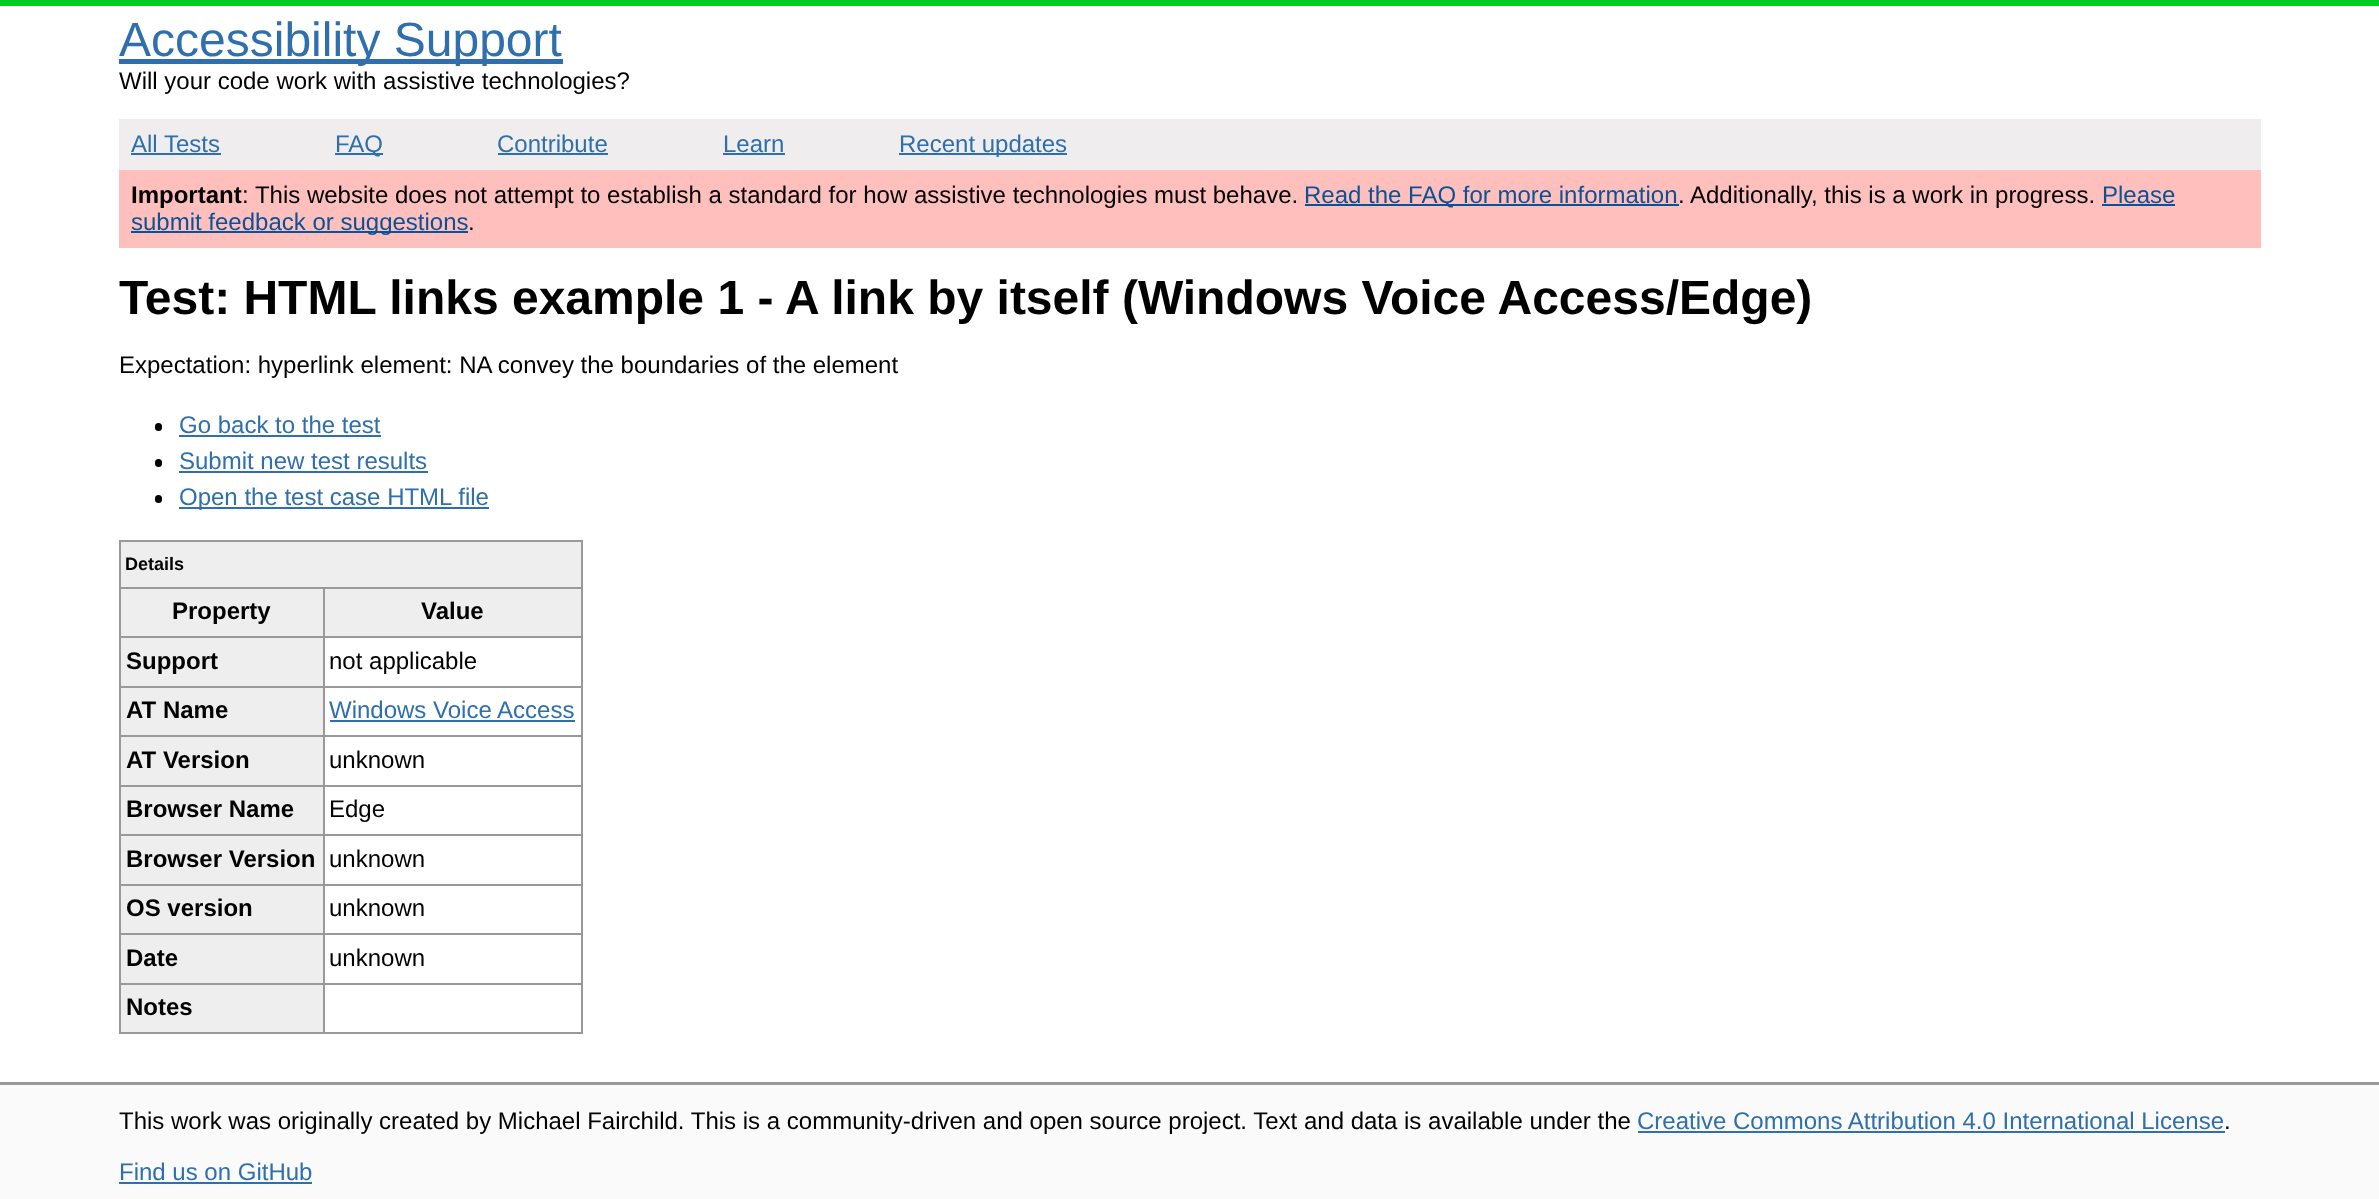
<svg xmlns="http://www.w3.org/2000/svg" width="2379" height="1199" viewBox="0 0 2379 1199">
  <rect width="100%" height="100%" fill="#fafafa"/>
  <rect x="0" y="0" width="2379" height="6" fill="#00cc21"/>
  <rect x="0" y="6" width="2379" height="1076" fill="#ffffff"/>
  <rect x="119" y="59" width="444" height="5" fill="#2f6fad"/>
  <text x="119" y="56" font-family="Liberation Sans" font-size="48" fill="#2f6fad">Accessibility Support</text>
  <text x="119" y="89" font-family="Liberation Sans" font-size="24" fill="#000000">Will your code work with assistive technologies?</text>
  <rect x="119" y="119" width="2142" height="51" fill="#efeded"/>
  <text x="131" y="152" font-family="Liberation Sans" font-size="24" fill="#2f6fad">All Tests</text>
  <rect x="131" y="153" width="90" height="2" fill="#2f6fad"/>
  <rect x="335" y="153" width="48" height="2" fill="#2f6fad"/>
  <text x="335" y="152" font-family="Liberation Sans" font-size="24" fill="#2f6fad">FAQ</text>
  <text x="497" y="152" font-family="Liberation Sans" font-size="24" fill="#2f6fad">Contribute</text>
  <rect x="498" y="153" width="110" height="2" fill="#2f6fad"/>
  <text x="723" y="152" font-family="Liberation Sans" font-size="24" fill="#2f6fad">Learn</text>
  <rect x="723" y="153" width="62" height="2" fill="#2f6fad"/>
  <rect x="899" y="153" width="168" height="2" fill="#2f6fad"/>
  <text x="899" y="152" font-family="Liberation Sans" font-size="24" fill="#2f6fad">Recent updates</text>
  <rect x="119" y="170" width="2142" height="78" fill="#ffbfbd"/>
  <text x="131" y="203" font-family="Liberation Sans" font-size="24" font-weight="bold" fill="#000000">Important</text>
  <text x="242" y="203" font-family="Liberation Sans" font-size="24" fill="#000000">: This website does not attempt to establish a standard for how assistive technologies must behave.</text>
  <rect x="1305" y="204" width="374" height="2" fill="#0a5297"/>
  <text x="1304" y="203" font-family="Liberation Sans" font-size="24" fill="#0a5297">Read the FAQ for more information</text>
  <text x="1678" y="203" font-family="Liberation Sans" font-size="24" fill="#000000">. Additionally, this is a work in progress.</text>
  <text x="2102" y="203" font-family="Liberation Sans" font-size="24" fill="#0a5297">Please</text>
  <rect x="2102" y="204" width="73" height="2" fill="#0a5297"/>
  <rect x="131" y="231" width="337" height="2" fill="#0a5297"/>
  <text x="131" y="230" font-family="Liberation Sans" font-size="24" fill="#0a5297">submit feedback or suggestions</text>
  <text x="468" y="230" font-family="Liberation Sans" font-size="24" fill="#000000">.</text>
  <text x="119" y="314" font-family="Liberation Sans" font-size="48" font-weight="bold" fill="#000000">Test: HTML links example 1 - A link by itself (Windows Voice Access/Edge)</text>
  <text x="119" y="373" font-family="Liberation Sans" font-size="24" fill="#000000">Expectation: hyperlink element: NA convey the boundaries of the element</text>
  <rect x="155" y="423" width="7" height="8" rx="3.5" fill="#000000"/>
  <text x="179" y="433" font-family="Liberation Sans" font-size="24" fill="#2f6fad">Go back to the test</text>
  <rect x="179" y="435" width="202" height="2" fill="#2f6fad"/>
  <rect x="155" y="459" width="7" height="8" rx="3.5" fill="#000000"/>
  <text x="179" y="469" font-family="Liberation Sans" font-size="24" fill="#2f6fad">Submit new test results</text>
  <rect x="179" y="471" width="249" height="2" fill="#2f6fad"/>
  <rect x="155" y="495" width="7" height="8" rx="3.5" fill="#000000"/>
  <rect x="179" y="507" width="310" height="2" fill="#2f6fad"/>
  <text x="179" y="505" font-family="Liberation Sans" font-size="24" fill="#2f6fad">Open the test case HTML file</text>
  <rect x="119" y="540" width="463" height="2" fill="#999999"/>
  <rect x="581" y="540" width="2" height="494" fill="#999999"/>
  <rect x="119" y="1032" width="463" height="2" fill="#999999"/>
  <rect x="119" y="540" width="2" height="494" fill="#999999"/>
  <rect x="121" y="542" width="460" height="45" fill="#eeeeee"/>
  <text x="125" y="570" font-family="Liberation Sans" font-size="18" font-weight="bold" fill="#000000">Details</text>
  <rect x="121" y="589" width="202" height="47" fill="#eeeeee"/>
  <rect x="323" y="587" width="259" height="2" fill="#999999"/>
  <rect x="323" y="636" width="259" height="2" fill="#999999"/>
  <rect x="323" y="686" width="259" height="2" fill="#999999"/>
  <rect x="323" y="735" width="259" height="2" fill="#999999"/>
  <rect x="323" y="785" width="259" height="2" fill="#999999"/>
  <rect x="323" y="834" width="259" height="2" fill="#999999"/>
  <rect x="323" y="884" width="259" height="2" fill="#999999"/>
  <rect x="323" y="933" width="259" height="2" fill="#999999"/>
  <rect x="323" y="983" width="259" height="2" fill="#999999"/>
  <rect x="323" y="983" width="2" height="51" fill="#999999"/>
  <rect x="119" y="983" width="205" height="2" fill="#999999"/>
  <rect x="323" y="933" width="2" height="51" fill="#999999"/>
  <rect x="119" y="933" width="205" height="2" fill="#999999"/>
  <rect x="323" y="884" width="2" height="51" fill="#999999"/>
  <rect x="119" y="884" width="205" height="2" fill="#999999"/>
  <rect x="323" y="834" width="2" height="51" fill="#999999"/>
  <rect x="119" y="834" width="205" height="2" fill="#999999"/>
  <rect x="323" y="785" width="2" height="51" fill="#999999"/>
  <rect x="119" y="785" width="205" height="2" fill="#999999"/>
  <rect x="323" y="735" width="2" height="51" fill="#999999"/>
  <rect x="119" y="735" width="205" height="2" fill="#999999"/>
  <rect x="323" y="686" width="2" height="51" fill="#999999"/>
  <rect x="119" y="686" width="205" height="2" fill="#999999"/>
  <rect x="323" y="636" width="2" height="51" fill="#999999"/>
  <rect x="119" y="636" width="205" height="2" fill="#999999"/>
  <rect x="323" y="587" width="2" height="51" fill="#999999"/>
  <rect x="119" y="587" width="205" height="2" fill="#999999"/>
  <text x="172" y="619" font-family="Liberation Sans" font-size="24" font-weight="bold" fill="#000000">Property</text>
  <rect x="325" y="589" width="256" height="47" fill="#eeeeee"/>
  <text x="421" y="619" font-family="Liberation Sans" font-size="24" font-weight="bold" fill="#000000">Value</text>
  <rect x="121" y="638" width="202" height="48" fill="#eeeeee"/>
  <text x="126" y="669" font-family="Liberation Sans" font-size="24" font-weight="bold" fill="#000000">Support</text>
  <text x="329" y="669" font-family="Liberation Sans" font-size="24" fill="#000000">not applicable</text>
  <rect x="121" y="688" width="202" height="47" fill="#eeeeee"/>
  <text x="126" y="718" font-family="Liberation Sans" font-size="24" font-weight="bold" fill="#000000">AT Name</text>
  <text x="329" y="718" font-family="Liberation Sans" font-size="24" fill="#2f6fad">Windows Voice Access</text>
  <rect x="330" y="720" width="245" height="2" fill="#2f6fad"/>
  <rect x="121" y="737" width="202" height="48" fill="#eeeeee"/>
  <text x="126" y="768" font-family="Liberation Sans" font-size="24" font-weight="bold" fill="#000000">AT Version</text>
  <text x="329" y="768" font-family="Liberation Sans" font-size="24" fill="#000000">unknown</text>
  <rect x="121" y="787" width="202" height="47" fill="#eeeeee"/>
  <text x="126" y="817" font-family="Liberation Sans" font-size="24" font-weight="bold" fill="#000000">Browser Name</text>
  <text x="329" y="817" font-family="Liberation Sans" font-size="24" fill="#000000">Edge</text>
  <rect x="121" y="836" width="202" height="48" fill="#eeeeee"/>
  <text x="126" y="867" font-family="Liberation Sans" font-size="24" font-weight="bold" fill="#000000">Browser Version</text>
  <text x="329" y="867" font-family="Liberation Sans" font-size="24" fill="#000000">unknown</text>
  <rect x="121" y="886" width="202" height="47" fill="#eeeeee"/>
  <text x="126" y="916" font-family="Liberation Sans" font-size="24" font-weight="bold" fill="#000000">OS version</text>
  <text x="329" y="916" font-family="Liberation Sans" font-size="24" fill="#000000">unknown</text>
  <rect x="121" y="935" width="202" height="48" fill="#eeeeee"/>
  <text x="126" y="966" font-family="Liberation Sans" font-size="24" font-weight="bold" fill="#000000">Date</text>
  <text x="329" y="966" font-family="Liberation Sans" font-size="24" fill="#000000">unknown</text>
  <rect x="121" y="985" width="202" height="47" fill="#eeeeee"/>
  <text x="126" y="1015" font-family="Liberation Sans" font-size="24" font-weight="bold" fill="#000000">Notes</text>
  <rect x="0" y="1082" width="2379" height="3" fill="#999999"/>
  <text x="119" y="1129" font-family="Liberation Sans" font-size="24" fill="#000000">This work was originally created by Michael Fairchild. This is a community-driven and open source project. Text and data is available under the</text>
  <text x="1637" y="1129" font-family="Liberation Sans" font-size="24" fill="#2f6fad">Creative Commons Attribution 4.0 International License</text>
  <rect x="1638" y="1131" width="587" height="2" fill="#2f6fad"/>
  <text x="2224" y="1129" font-family="Liberation Sans" font-size="24" fill="#000000">.</text>
  <text x="119" y="1180" font-family="Liberation Sans" font-size="24" fill="#2f6fad">Find us on GitHub</text>
  <rect x="119" y="1182" width="193" height="2" fill="#2f6fad"/>
</svg>
